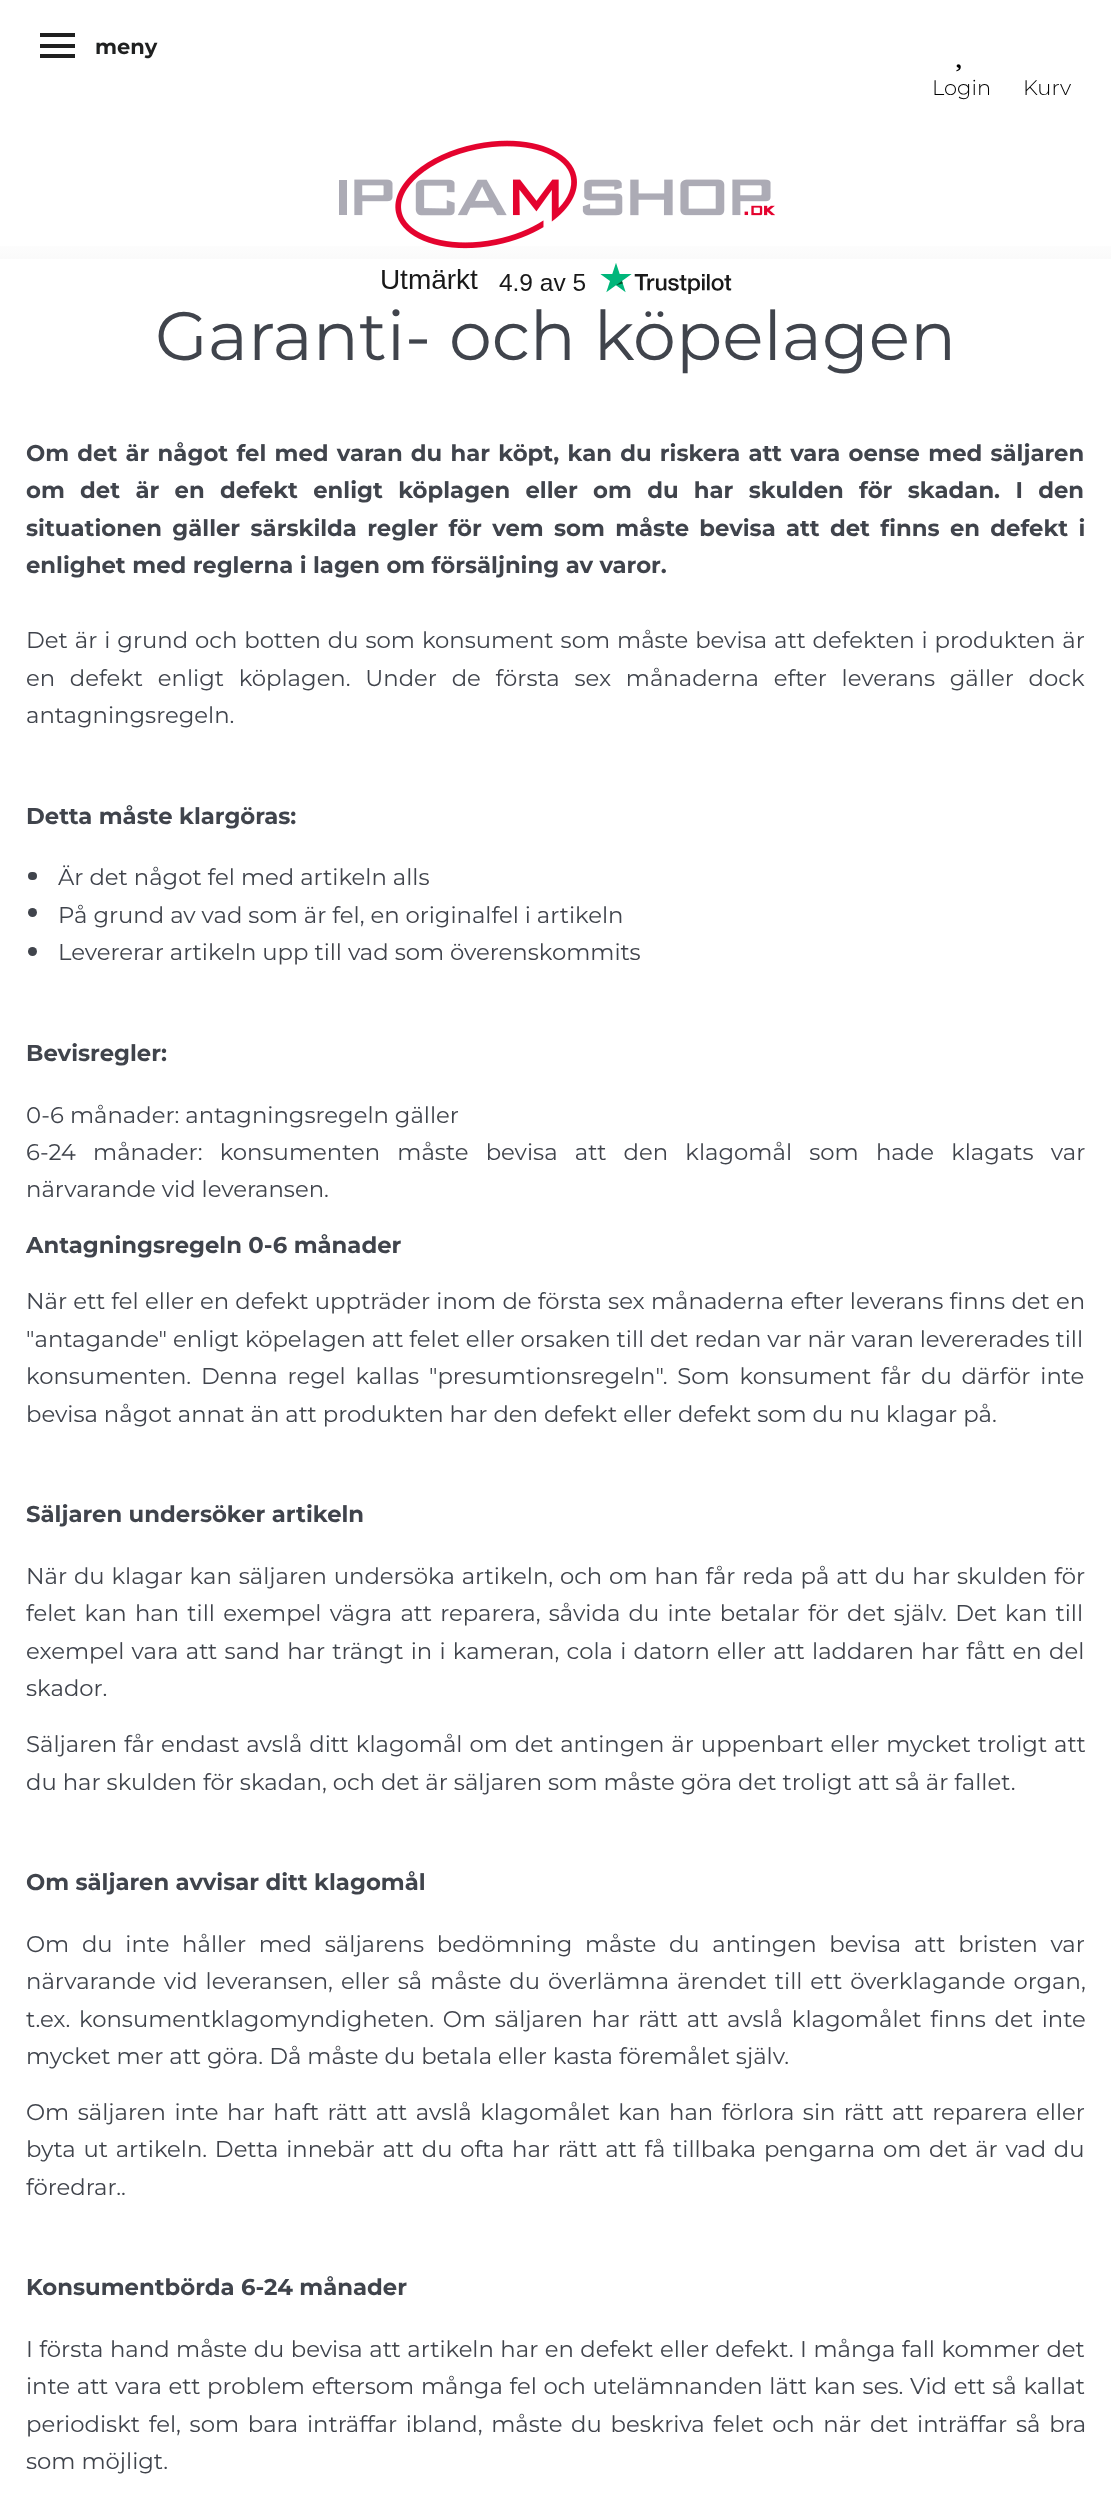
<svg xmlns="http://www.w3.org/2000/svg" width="1111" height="2497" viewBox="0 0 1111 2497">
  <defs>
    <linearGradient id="g1" gradientUnits="userSpaceOnUse" x1="556" y1="259" x2="556" y2="131"><stop offset="0" stop-color="#fafafa"/><stop offset="0.2" stop-color="#ffffff"/></linearGradient>
  </defs>
  <rect width="100%" height="100%" fill="#ffffff"/>
  <rect x="40" y="33" width="35" height="4" fill="#1f2020"/>
  <rect x="40" y="44" width="35" height="4" fill="#1f2020"/>
  <rect x="40" y="54" width="35" height="4" fill="#1f2020"/>
  <text x="95" y="54" font-family="Montserrat" font-size="21" font-weight="bold" fill="#1f2020">meny</text>
  <image x="956" y="64" width="5" height="8" href="img1.png"/>
  <text x="932" y="95" font-family="Montserrat" font-size="21" font-weight="300" fill="#000000">Login</text>
  <text x="1023" y="95" font-family="Montserrat" font-size="21" font-weight="300" fill="#000000">Kurv</text>
  <rect x="0" y="246" width="1111" height="13" fill="url(#g1)"/>
  <image x="339" y="140" width="436" height="109" href="img2.png"/>
  <image x="382" y="263" width="350" height="31" href="img3.png"/>
  <text x="155" y="360" font-family="Montserrat" font-size="68.25" fill="#40444c">Garanti- och köpelagen</text>
  <text x="26" y="461" word-spacing="1.8" font-family="Montserrat" font-size="22.75" font-weight="bold" fill="#40444c">Om det är något fel med varan du har köpt, kan du riskera att vara oense med säljaren</text>
  <text x="26" y="498" word-spacing="8.9" font-family="Montserrat" font-size="22.75" font-weight="bold" fill="#40444c">om det är en defekt enligt köplagen eller om du har skulden för skadan. I den</text>
  <text x="26" y="536" word-spacing="3.9" font-family="Montserrat" font-size="22.75" font-weight="bold" fill="#40444c">situationen gäller särskilda regler för vem som måste bevisa att det finns en defekt i</text>
  <text x="26" y="573" font-family="Montserrat" font-size="22.75" font-weight="bold" fill="#40444c">enlighet med reglerna i lagen om försäljning av varor.</text>
  <text x="26" y="648" word-spacing="1" font-family="Montserrat" font-size="22.75" fill="#40444c">Det är i grund och botten du som konsument som måste bevisa att defekten i produkten är</text>
  <text x="26" y="686" word-spacing="8.75" font-family="Montserrat" font-size="22.75" fill="#40444c">en defekt enligt köplagen. Under de första sex månaderna efter leverans gäller dock</text>
  <text x="26" y="723" font-family="Montserrat" font-size="22.75" fill="#40444c">antagningsregeln.</text>
  <text x="26" y="824" font-family="Montserrat" font-size="22.75" font-weight="bold" fill="#40444c">Detta måste klargöras:</text>
  <rect x="28" y="872" width="9" height="8" rx="4" fill="#40444c"/>
  <text x="58" y="885" font-family="Montserrat" font-size="22.75" fill="#40444c">Är det något fel med artikeln alls</text>
  <circle cx="32.5" cy="912.5" r="4.5" fill="#40444c"/>
  <text x="58" y="923" font-family="Montserrat" font-size="22.75" fill="#40444c">På grund av vad som är fel, en originalfel i artikeln</text>
  <circle cx="32.5" cy="951.5" r="4.5" fill="#40444c"/>
  <text x="58" y="960" font-family="Montserrat" font-size="22.75" fill="#40444c">Levererar artikeln upp till vad som överenskommits</text>
  <text x="26" y="1061" font-family="Montserrat" font-size="22.75" font-weight="bold" fill="#40444c">Bevisregler:</text>
  <text x="26" y="1123" font-family="Montserrat" font-size="22.75" fill="#40444c">0-6 månader: antagningsregeln gäller</text>
  <text x="26" y="1160" word-spacing="11.25" font-family="Montserrat" font-size="22.75" fill="#40444c">6-24 månader: konsumenten måste bevisa att den klagomål som hade klagats var</text>
  <text x="26" y="1197" font-family="Montserrat" font-size="22.75" fill="#40444c">närvarande vid leveransen.</text>
  <text x="26" y="1253" font-family="Montserrat" font-size="22.75" font-weight="bold" fill="#40444c">Antagningsregeln 0-6 månader</text>
  <text x="26" y="1309" word-spacing="0.25" font-family="Montserrat" font-size="22.75" fill="#40444c">När ett fel eller en defekt uppträder inom de första sex månaderna efter leverans finns det en</text>
  <text x="26" y="1347" font-family="Montserrat" font-size="22.75" fill="#40444c">"antagande" enligt köpelagen att felet eller orsaken till det redan var när varan levererades till</text>
  <text x="26" y="1384" word-spacing="3.9" font-family="Montserrat" font-size="22.75" fill="#40444c">konsumenten. Denna regel kallas "presumtionsregeln". Som konsument får du därför inte</text>
  <text x="26" y="1422" font-family="Montserrat" font-size="22.75" fill="#40444c">bevisa något annat än att produkten har den defekt eller defekt som du nu klagar på.</text>
  <text x="26" y="1522" font-family="Montserrat" font-size="22.75" font-weight="bold" fill="#40444c">Säljaren undersöker artikeln</text>
  <text x="26" y="1584" word-spacing="0.9" font-family="Montserrat" font-size="22.75" fill="#40444c">När du klagar kan säljaren undersöka artikeln, och om han får reda på att du har skulden för</text>
  <text x="26" y="1621" word-spacing="2.25" font-family="Montserrat" font-size="22.75" fill="#40444c">felet kan han till exempel vägra att reparera, såvida du inte betalar för det själv. Det kan till</text>
  <text x="26" y="1659" word-spacing="1.3" font-family="Montserrat" font-size="22.75" fill="#40444c">exempel vara att sand har trängt in i kameran, cola i datorn eller att laddaren har fått en del</text>
  <text x="26" y="1696" font-family="Montserrat" font-size="22.75" fill="#40444c">skador.</text>
  <text x="26" y="1752" word-spacing="1" font-family="Montserrat" font-size="22.75" fill="#40444c">Säljaren får endast avslå ditt klagomål om det antingen är uppenbart eller mycket troligt att</text>
  <text x="26" y="1790" font-family="Montserrat" font-size="22.75" fill="#40444c">du har skulden för skadan, och det är säljaren som måste göra det troligt att så är fallet.</text>
  <text x="26" y="1890" font-family="Montserrat" font-size="22.75" font-weight="bold" fill="#40444c">Om säljaren avvisar ditt klagomål</text>
  <text x="26" y="1952" word-spacing="6.75" font-family="Montserrat" font-size="22.75" fill="#40444c">Om du inte håller med säljarens bedömning måste du antingen bevisa att bristen var</text>
  <text x="26" y="1989" word-spacing="2" font-family="Montserrat" font-size="22.75" fill="#40444c">närvarande vid leveransen, eller så måste du överlämna ärendet till ett överklagande organ,</text>
  <text x="26" y="2027" word-spacing="2.75" font-family="Montserrat" font-size="22.75" fill="#40444c">t.ex. konsumentklagomyndigheten. Om säljaren har rätt att avslå klagomålet finns det inte</text>
  <text x="26" y="2064" font-family="Montserrat" font-size="22.75" fill="#40444c">mycket mer att göra. Då måste du betala eller kasta föremålet själv.</text>
  <text x="26" y="2120" word-spacing="2.5" font-family="Montserrat" font-size="22.75" fill="#40444c">Om säljaren inte har haft rätt att avslå klagomålet kan han förlora sin rätt att reparera eller</text>
  <text x="26" y="2157" word-spacing="1.75" font-family="Montserrat" font-size="22.75" fill="#40444c">byta ut artikeln. Detta innebär att du ofta har rätt att få tillbaka pengarna om det är vad du</text>
  <text x="26" y="2195" font-family="Montserrat" font-size="22.75" fill="#40444c">föredrar..</text>
  <text x="26" y="2295" font-family="Montserrat" font-size="22.75" font-weight="bold" fill="#40444c">Konsumentbörda 6-24 månader</text>
  <text x="26" y="2357" word-spacing="0.5" font-family="Montserrat" font-size="22.75" fill="#40444c">I första hand måste du bevisa att artikeln har en defekt eller defekt. I många fall kommer det</text>
  <text x="26" y="2394" word-spacing="0.7" font-family="Montserrat" font-size="22.75" fill="#40444c">inte att vara ett problem eftersom många fel och utelämnanden lätt kan ses. Vid ett så kallat</text>
  <text x="26" y="2432" word-spacing="2.75" font-family="Montserrat" font-size="22.75" fill="#40444c">periodiskt fel, som bara inträffar ibland, måste du beskriva felet och när det inträffar så bra</text>
  <text x="26" y="2469" font-family="Montserrat" font-size="22.75" fill="#40444c">som möjligt.</text>
</svg>
